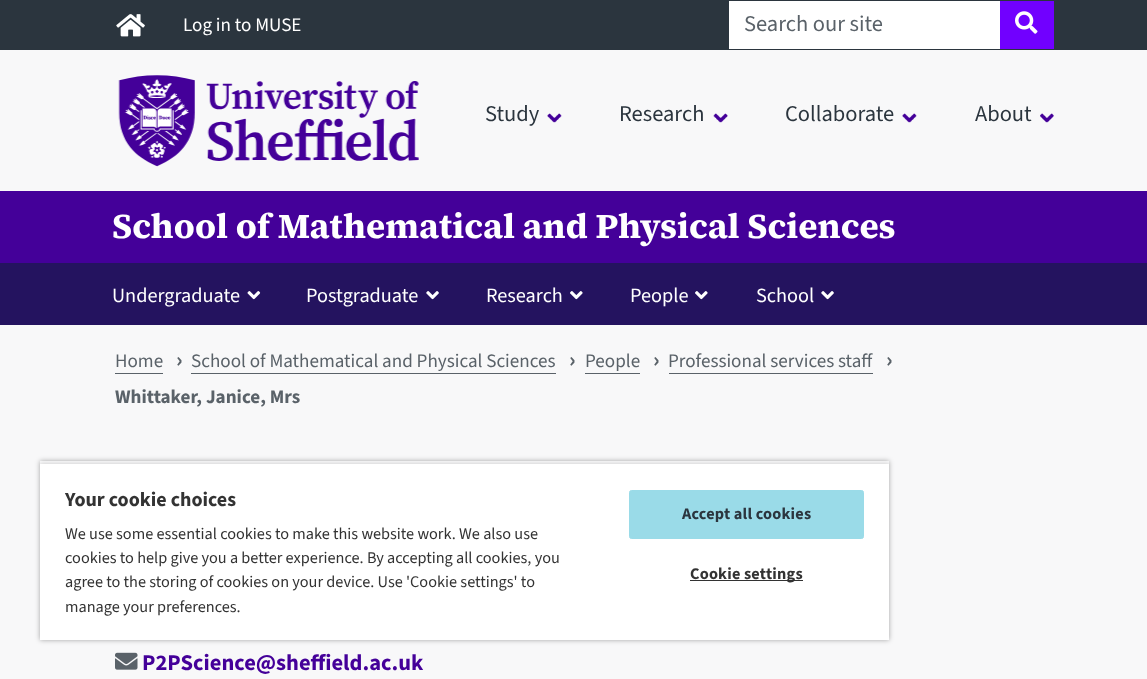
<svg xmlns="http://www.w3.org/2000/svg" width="1147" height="679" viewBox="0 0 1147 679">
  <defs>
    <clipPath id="clip1"><path d="M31 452H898V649H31ZM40 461H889V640H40Z" clip-rule="evenodd"/></clipPath>
    <filter id="blur1" x="-50%" y="-200%" width="200%" height="500%"><feGaussianBlur stdDeviation="2.5"/></filter>
    <clipPath id="clip2"><rect x="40" y="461" width="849" height="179"/></clipPath>
  </defs>
  <rect width="100%" height="100%" fill="#f8f8f9"/>
  <rect x="0" y="0" width="1147" height="50" fill="#2b353e"/>
  <image x="116" y="14" width="29" height="23" href="img1.png"/>
  <text x="183" y="31" font-family="'Source Sans 3'" font-size="19.1" font-weight="200" fill="#ffffff">Log in to MUSE</text>
  <rect x="729" y="1" width="271" height="48" fill="#ffffff"/>
  <text x="744" y="31" font-family="'Source Sans 3'" font-size="22.5" font-weight="200" fill="#5a6269">Search our site</text>
  <rect x="1000" y="1" width="54" height="48" fill="#7100ff"/>
  <image x="1015" y="11" width="23" height="23" href="img2.png"/>
  <image x="118" y="75" width="301" height="92" href="img3.png"/>
  <image x="547" y="113" width="15" height="10" href="img4.png"/>
  <text x="485" y="121" font-family="'Source Sans 3'" font-size="22.5" font-weight="200" fill="#2b353e">Study</text>
  <image x="713" y="113" width="15" height="10" href="img5.png"/>
  <text x="619" y="121" font-family="'Source Sans 3'" font-size="22.5" font-weight="200" fill="#2b353e">Research</text>
  <image x="902" y="113" width="15" height="10" href="img6.png"/>
  <text x="785" y="121" font-family="'Source Sans 3'" font-size="22.5" font-weight="200" fill="#2b353e">Collaborate</text>
  <image x="1040" y="113" width="14" height="10" href="img7.png"/>
  <text x="975" y="121" font-family="'Source Sans 3'" font-size="22.5" font-weight="200" fill="#2b353e">About</text>
  <rect x="0" y="191" width="1147" height="72" fill="#440099"/>
  <text x="112" y="238" font-family="'Source Serif 4'" font-size="35" font-weight="bold" fill="#ffffff">School of Mathematical and Physical Sciences</text>
  <rect x="0" y="263" width="1147" height="62" fill="#24135f"/>
  <text x="112" y="302" font-family="'Source Sans 3'" font-size="20.25" font-weight="200" fill="#ffffff">Undergraduate</text>
  <image x="247" y="291" width="14" height="9" href="img8.png"/>
  <text x="306" y="302" font-family="'Source Sans 3'" font-size="20.25" font-weight="200" fill="#ffffff">Postgraduate</text>
  <image x="426" y="291" width="13" height="9" href="img9.png"/>
  <text x="486" y="302" font-family="'Source Sans 3'" font-size="20.25" font-weight="200" fill="#ffffff">Research</text>
  <image x="570" y="291" width="13" height="9" href="img10.png"/>
  <text x="630" y="302" font-family="'Source Sans 3'" font-size="20.25" font-weight="200" fill="#ffffff">People</text>
  <image x="695" y="291" width="13" height="9" href="img10.png"/>
  <text x="756" y="302" font-family="'Source Sans 3'" font-size="20.25" font-weight="200" fill="#ffffff">School</text>
  <image x="821" y="291" width="13" height="9" href="img9.png"/>
  <text x="115" y="367" font-family="'Source Sans 3'" font-size="19.1" font-weight="200" fill="#5a6269">Home</text>
  <rect x="115" y="373" width="48" height="1" fill="#5a6269"/>
  <text x="176" y="367" font-family="'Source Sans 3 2'" font-size="22.5" font-weight="200" fill="#5a6269">›</text>
  <text x="191" y="367" font-family="'Source Sans 3'" font-size="19.1" font-weight="200" fill="#5a6269">School of Mathematical and Physical Sciences</text>
  <rect x="191" y="373" width="365" height="1" fill="#5a6269"/>
  <text x="569" y="367" font-family="'Source Sans 3 2'" font-size="22.5" font-weight="200" fill="#5a6269">›</text>
  <text x="585" y="367" font-family="'Source Sans 3'" font-size="19.1" font-weight="200" fill="#5a6269">People</text>
  <rect x="585" y="373" width="55" height="1" fill="#5a6269"/>
  <text x="653" y="367" font-family="'Source Sans 3 2'" font-size="22.5" font-weight="200" fill="#5a6269">›</text>
  <text x="668" y="367" font-family="'Source Sans 3'" font-size="19.1" font-weight="200" fill="#5a6269">Professional services staff</text>
  <rect x="669" y="373" width="204" height="1" fill="#5a6269"/>
  <text x="886" y="367" font-family="'Source Sans 3 2'" font-size="22.5" font-weight="200" fill="#5a6269">›</text>
  <text x="115" y="403" font-family="'Source Sans 3 2'" font-size="19.1" font-weight="200" fill="#5a6269">Whittaker, Janice, Mrs</text>
  <image x="115" y="652" width="23" height="18" href="img11.png"/>
  <text x="142" y="670" font-family="'Source Sans 3 2'" font-size="22.5" font-weight="200" fill="#440099">P2PScience@sheffield.ac.uk</text>
  <g clip-path="url(#clip1)">
    <rect x="40" y="461" width="849" height="179" fill="#000000" fill-opacity="0.35" filter="url(#blur1)"/>
  </g>
  <g clip-path="url(#clip2)">
    <rect x="40" y="464" width="849" height="176" fill="#000000" fill-opacity="0.2" filter="url(#blur1)"/>
  </g>
  <rect x="40" y="464" width="849" height="176" fill="#ffffff"/>
  <text x="65" y="506" font-family="'Source Sans 3 2'" font-size="20" font-weight="200" fill="#333333">Your cookie choices</text>
  <text x="65" y="539" font-family="'Source Sans 3'" font-size="16.25" font-weight="200" fill="#333333">We use some essential cookies to make this website work. We also use</text>
  <text x="65" y="563" font-family="'Source Sans 3'" font-size="16.25" font-weight="200" fill="#333333">cookies to help give you a better experience. By accepting all cookies, you</text>
  <text x="65" y="587" font-family="'Source Sans 3'" font-size="16.25" font-weight="200" fill="#333333">agree to the storing of cookies on your device. Use 'Cookie settings' to</text>
  <text x="65" y="612" font-family="'Source Sans 3'" font-size="16.25" font-weight="200" fill="#333333">manage your preferences.</text>
  <rect x="629.5" y="490.5" width="234" height="48" rx="2" fill="#9adbe8" stroke="#9adbe8"/>
  <text x="682" y="519" font-family="'Source Sans 3 2'" font-size="16.25" font-weight="200" letter-spacing="0.2" fill="#2b353e">Accept all cookies</text>
  <rect x="690" y="580" width="113" height="1" fill="#333333"/>
  <text x="690" y="579" font-family="'Source Sans 3 2'" font-size="16.25" font-weight="200" letter-spacing="0.2" fill="#333333">Cookie settings</text>
</svg>
